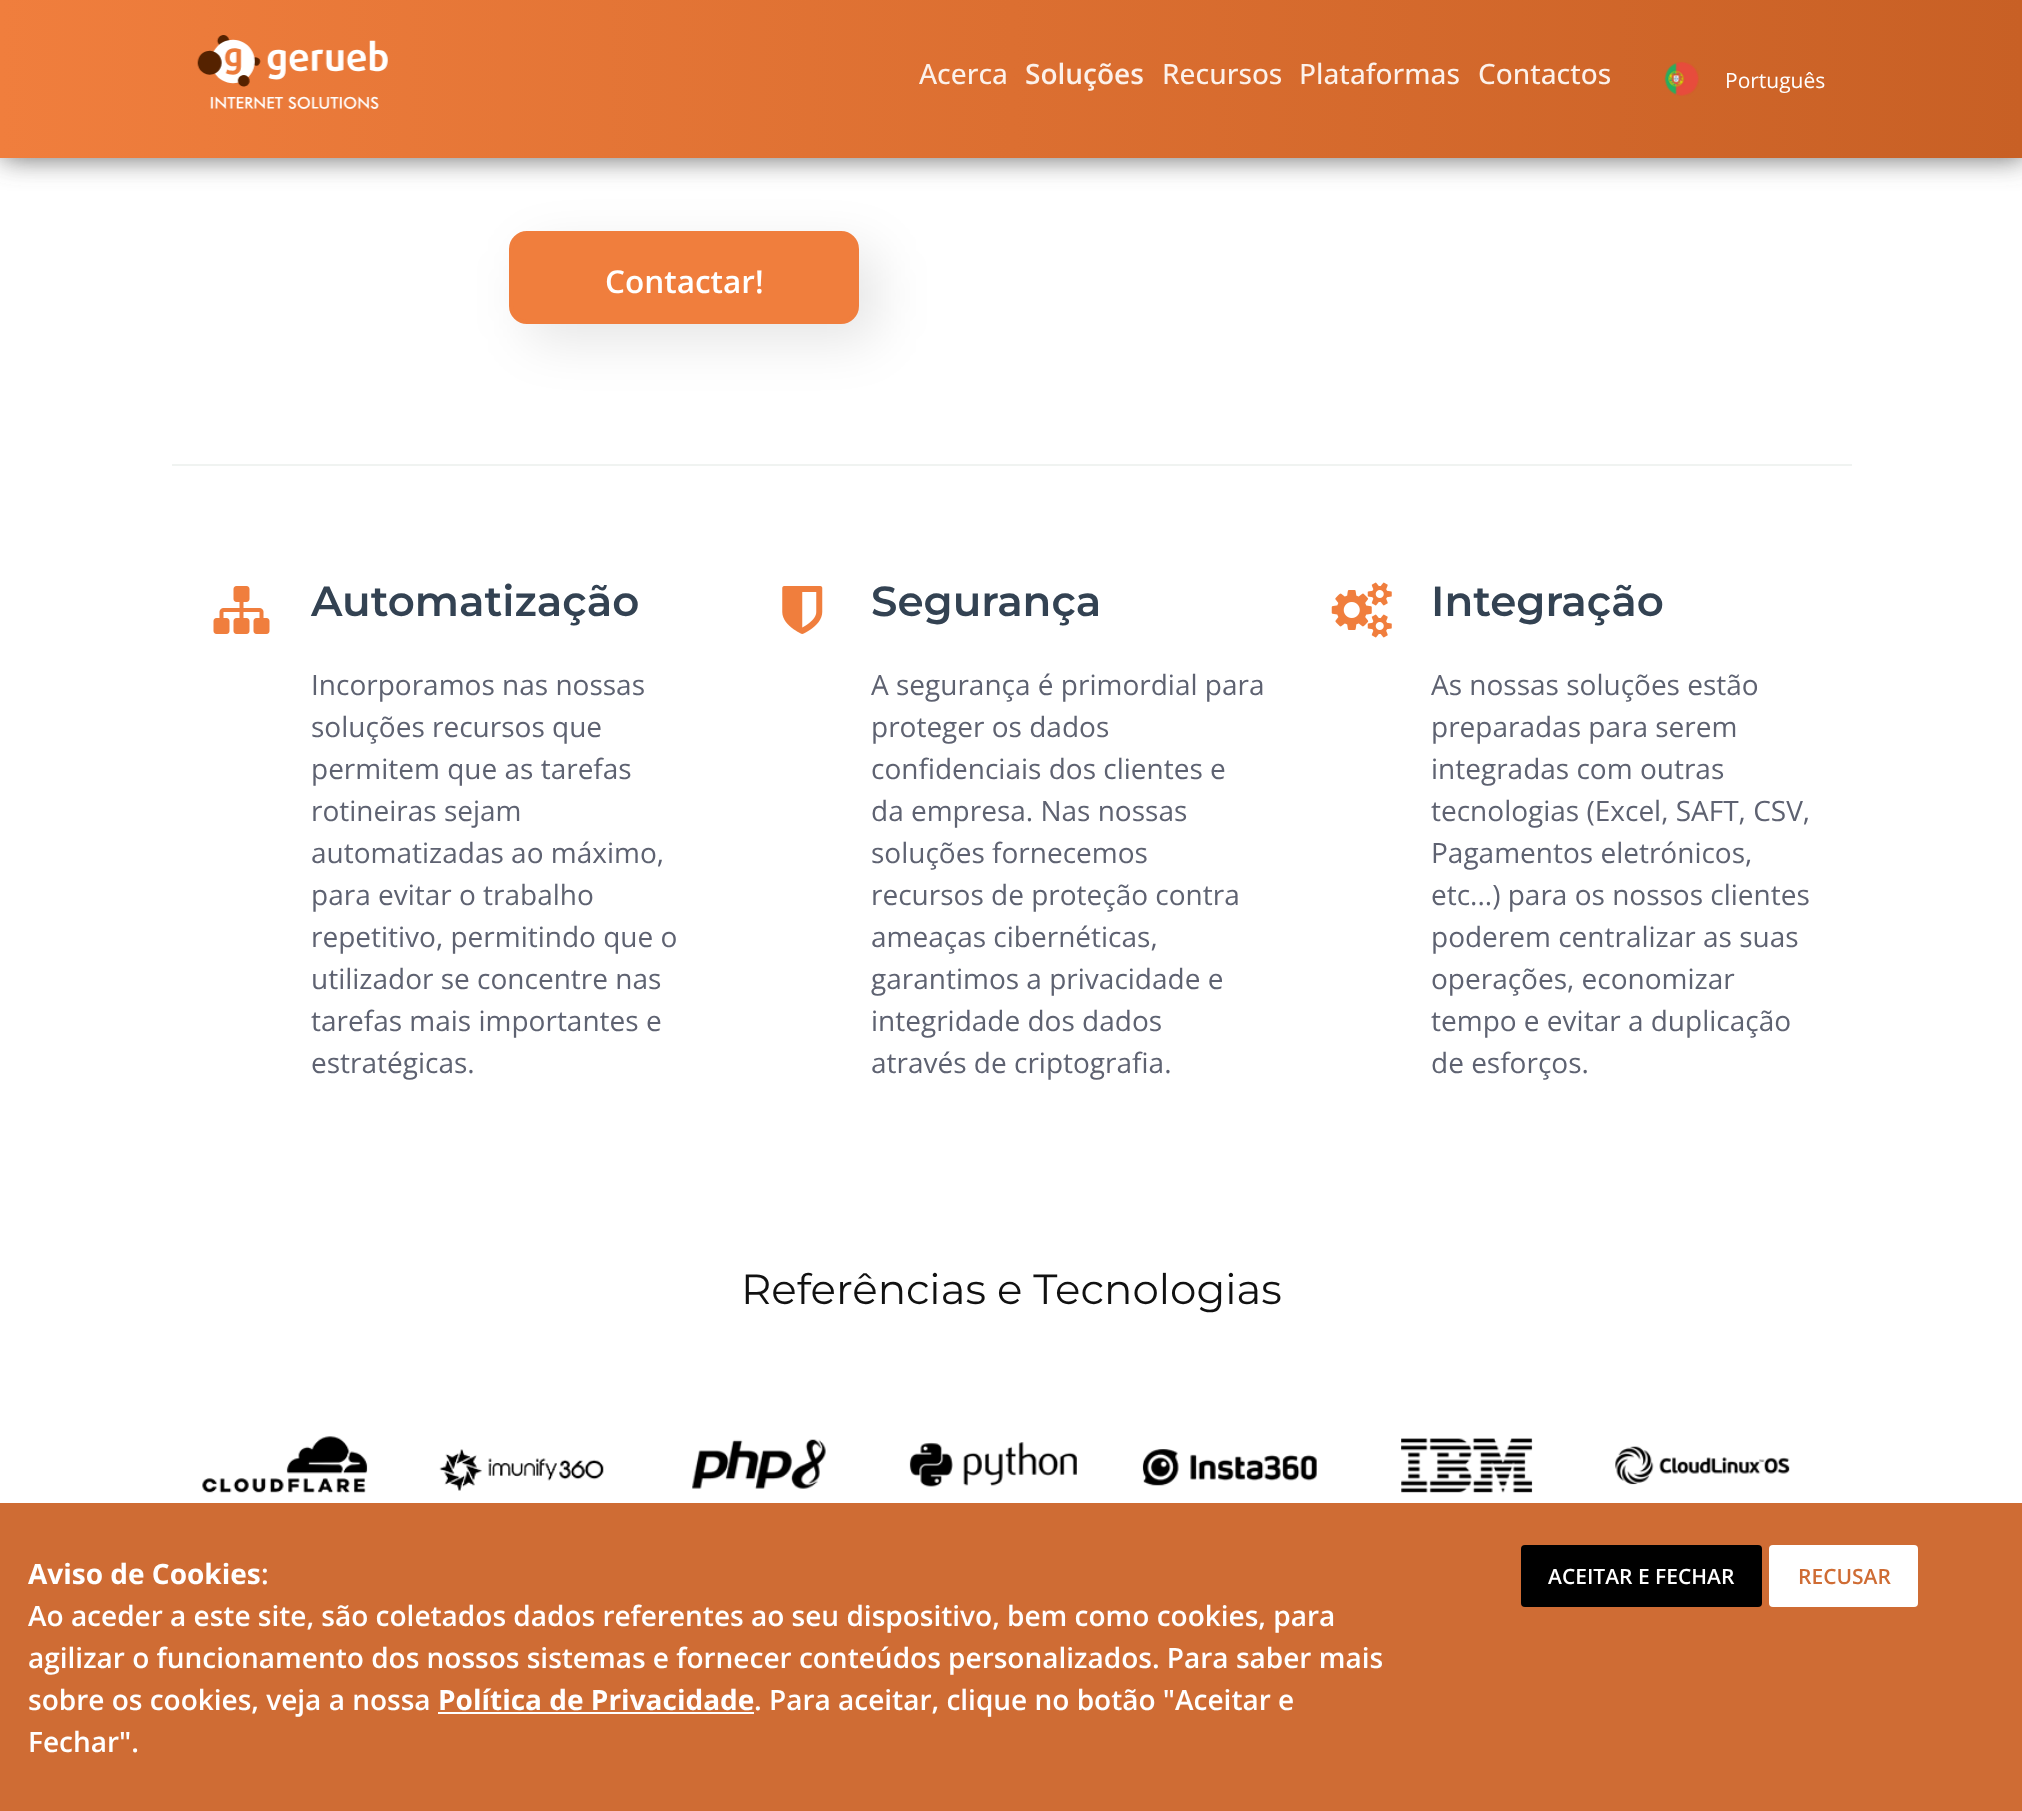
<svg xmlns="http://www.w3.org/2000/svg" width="2022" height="1811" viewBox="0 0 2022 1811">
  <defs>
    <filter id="blur1" x="-50%" y="-200%" width="200%" height="500%"><feGaussianBlur stdDeviation="14"/></filter>
    <linearGradient id="g1" gradientUnits="userSpaceOnUse" x1="0" y1="79" x2="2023" y2="79"><stop offset="0" stop-color="#f07e3d"/><stop offset="1" stop-color="#c86025"/></linearGradient>
    <filter id="blur2" x="-50%" y="-200%" width="200%" height="500%"><feGaussianBlur stdDeviation="26"/></filter>
  </defs>
  <rect width="100%" height="100%" fill="#ffffff"/>
  <rect x="2" y="0" width="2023" height="158" fill="#666666" filter="url(#blur1)"/>
  <rect x="0" y="0" width="2022" height="158" fill="url(#g1)"/>
  <image x="197" y="35" width="191" height="74" href="img1.png"/>
  <text x="919" y="84" font-family="Open Sans" font-size="28" font-weight="500" fill="#fcf1ea">Acerca</text>
  <text x="1025" y="84" font-family="Open Sans" font-size="28" font-weight="600" fill="#fcf1ea">Soluções</text>
  <text x="1162" y="84" font-family="Open Sans" font-size="28" font-weight="500" fill="#fcf1ea">Recursos</text>
  <text x="1299" y="84" font-family="Open Sans" font-size="28" font-weight="500" fill="#fcf1ea">Plataformas</text>
  <text x="1478" y="84" font-family="Open Sans" font-size="28" font-weight="500" fill="#fcf1ea">Contactos</text>
  <image x="1664" y="62" width="35" height="34" href="img2.png"/>
  <text x="1725" y="88" font-family="Open Sans" font-size="21" fill="#ffffff">Português</text>
  <rect x="527" y="249" width="350" height="92" rx="18" fill="#000000" fill-opacity="0.1" filter="url(#blur2)"/>
  <rect x="511" y="233" width="346" height="89" rx="16" fill="#f07e3d" stroke="#f07e3d" stroke-width="4"/>
  <text x="605" y="293" font-family="Open Sans" font-size="31.5" font-weight="600" fill="#ffffff">Contactar!</text>
  <rect x="172" y="464" width="1680" height="2" fill="#f0f3f1"/>
  <image x="213" y="586" width="57" height="48" href="img3.png"/>
  <text x="311" y="616" font-family="Montserrat" font-size="42" font-weight="600" fill="#334252">Automatização</text>
  <text x="311" y="695" font-family="Open Sans" font-size="28" fill="#5e6271">Incorporamos nas nossas</text>
  <text x="311" y="737" font-family="Open Sans" font-size="28" fill="#5e6271">soluções recursos que</text>
  <text x="311" y="779" font-family="Open Sans" font-size="28" fill="#5e6271">permitem que as tarefas</text>
  <text x="311" y="821" font-family="Open Sans" font-size="28" fill="#5e6271">rotineiras sejam</text>
  <text x="311" y="863" font-family="Open Sans" font-size="28" fill="#5e6271">automatizadas ao máximo,</text>
  <text x="311" y="905" font-family="Open Sans" font-size="28" fill="#5e6271">para evitar o trabalho</text>
  <text x="311" y="947" font-family="Open Sans" font-size="28" fill="#5e6271">repetitivo, permitindo que o</text>
  <text x="311" y="989" font-family="Open Sans" font-size="28" fill="#5e6271">utilizador se concentre nas</text>
  <text x="311" y="1031" font-family="Open Sans" font-size="28" fill="#5e6271">tarefas mais importantes e</text>
  <text x="311" y="1073" font-family="Open Sans" font-size="28" fill="#5e6271">estratégicas.</text>
  <image x="782" y="586" width="41" height="48" href="img4.png"/>
  <text x="871" y="616" font-family="Montserrat" font-size="42" font-weight="600" fill="#334252">Segurança</text>
  <text x="871" y="695" font-family="Open Sans" font-size="28" fill="#5e6271">A segurança é primordial para</text>
  <text x="871" y="737" font-family="Open Sans" font-size="28" fill="#5e6271">proteger os dados</text>
  <text x="871" y="779" font-family="Open Sans" font-size="28" fill="#5e6271">confidenciais dos clientes e</text>
  <text x="871" y="821" font-family="Open Sans" font-size="28" fill="#5e6271">da empresa. Nas nossas</text>
  <text x="871" y="863" font-family="Open Sans" font-size="28" fill="#5e6271">soluções fornecemos</text>
  <text x="871" y="905" font-family="Open Sans" font-size="28" fill="#5e6271">recursos de proteção contra</text>
  <text x="871" y="947" font-family="Open Sans" font-size="28" fill="#5e6271">ameaças cibernéticas,</text>
  <text x="871" y="989" font-family="Open Sans" font-size="28" fill="#5e6271">garantimos a privacidade e</text>
  <text x="871" y="1031" font-family="Open Sans" font-size="28" fill="#5e6271">integridade dos dados</text>
  <text x="871" y="1073" font-family="Open Sans" font-size="28" fill="#5e6271">através de criptografia.</text>
  <image x="1331" y="582" width="61" height="56" href="img5.png"/>
  <text x="1431" y="616" font-family="Montserrat" font-size="42" font-weight="600" fill="#334252">Integração</text>
  <text x="1431" y="695" font-family="Open Sans" font-size="28" fill="#5e6271">As nossas soluções estão</text>
  <text x="1431" y="737" font-family="Open Sans" font-size="28" fill="#5e6271">preparadas para serem</text>
  <text x="1431" y="779" font-family="Open Sans" font-size="28" fill="#5e6271">integradas com outras</text>
  <text x="1431" y="821" font-family="Open Sans" font-size="28" fill="#5e6271">tecnologias (Excel, SAFT, CSV,</text>
  <text x="1431" y="863" font-family="Open Sans" font-size="28" fill="#5e6271">Pagamentos eletrónicos,</text>
  <text x="1431" y="905" font-family="Open Sans" font-size="28" fill="#5e6271">etc...) para os nossos clientes</text>
  <text x="1431" y="947" font-family="Open Sans" font-size="28" fill="#5e6271">poderem centralizar as suas</text>
  <text x="1431" y="989" font-family="Open Sans" font-size="28" fill="#5e6271">operações, economizar</text>
  <text x="1431" y="1031" font-family="Open Sans" font-size="28" fill="#5e6271">tempo e evitar a duplicação</text>
  <text x="1431" y="1073" font-family="Open Sans" font-size="28" fill="#5e6271">de esforços.</text>
  <text x="741" y="1304" font-family="Montserrat" font-size="42" fill="#111111">Referências e Tecnologias</text>
  <image x="202" y="1436" width="166" height="57" href="img6.png"/>
  <image x="439" y="1449" width="165" height="42" href="img7.png"/>
  <image x="692" y="1439" width="134" height="50" href="img8.png"/>
  <image x="909" y="1442" width="168" height="45" href="img9.png"/>
  <image x="1142" y="1449" width="175" height="37" href="img10.png"/>
  <image x="1401" y="1438" width="132" height="55" href="img11.png"/>
  <image x="1615" y="1446" width="175" height="39" href="img12.png"/>
  <rect x="0" y="1503" width="2022" height="308" fill="#cf6c34"/>
  <text x="28" y="1584" font-family="Open Sans" font-size="28" font-weight="bold" fill="#ffffff">Aviso de Cookies</text>
  <text x="261" y="1584" font-family="Open Sans" font-size="28" font-weight="600" fill="#ffffff">:</text>
  <text x="28" y="1626" font-family="Open Sans" font-size="28" font-weight="600" fill="#ffffff">Ao aceder a este site, são coletados dados referentes ao seu dispositivo, bem como cookies, para</text>
  <text x="28" y="1668" font-family="Open Sans" font-size="28" font-weight="600" fill="#ffffff">agilizar o funcionamento dos nossos sistemas e fornecer conteúdos personalizados. Para saber mais</text>
  <text x="28" y="1710" font-family="Open Sans" font-size="28" font-weight="600" fill="#ffffff">sobre os cookies, veja a nossa</text>
  <text x="438" y="1710" font-family="Open Sans" font-size="28" font-weight="bold" fill="#ffffff">Política de Privacidade</text>
  <rect x="438" y="1712" width="316" height="2" fill="#ffffff"/>
  <text x="754" y="1710" font-family="Open Sans" font-size="28" font-weight="600" fill="#ffffff">. Para aceitar, clique no botão "Aceitar e</text>
  <text x="28" y="1752" font-family="Open Sans" font-size="28" font-weight="600" fill="#ffffff">Fechar".</text>
  <rect x="1521" y="1545" width="241" height="62" rx="4" fill="#000000"/>
  <text x="1548" y="1584" font-family="Open Sans" font-size="21" font-weight="600" fill="#ffffff">ACEITAR E FECHAR</text>
  <rect x="1769" y="1545" width="149" height="62" rx="4" fill="#ffffff"/>
  <text x="1798" y="1584" font-family="Open Sans" font-size="21" font-weight="600" fill="#cf6c34">RECUSAR</text>
</svg>
